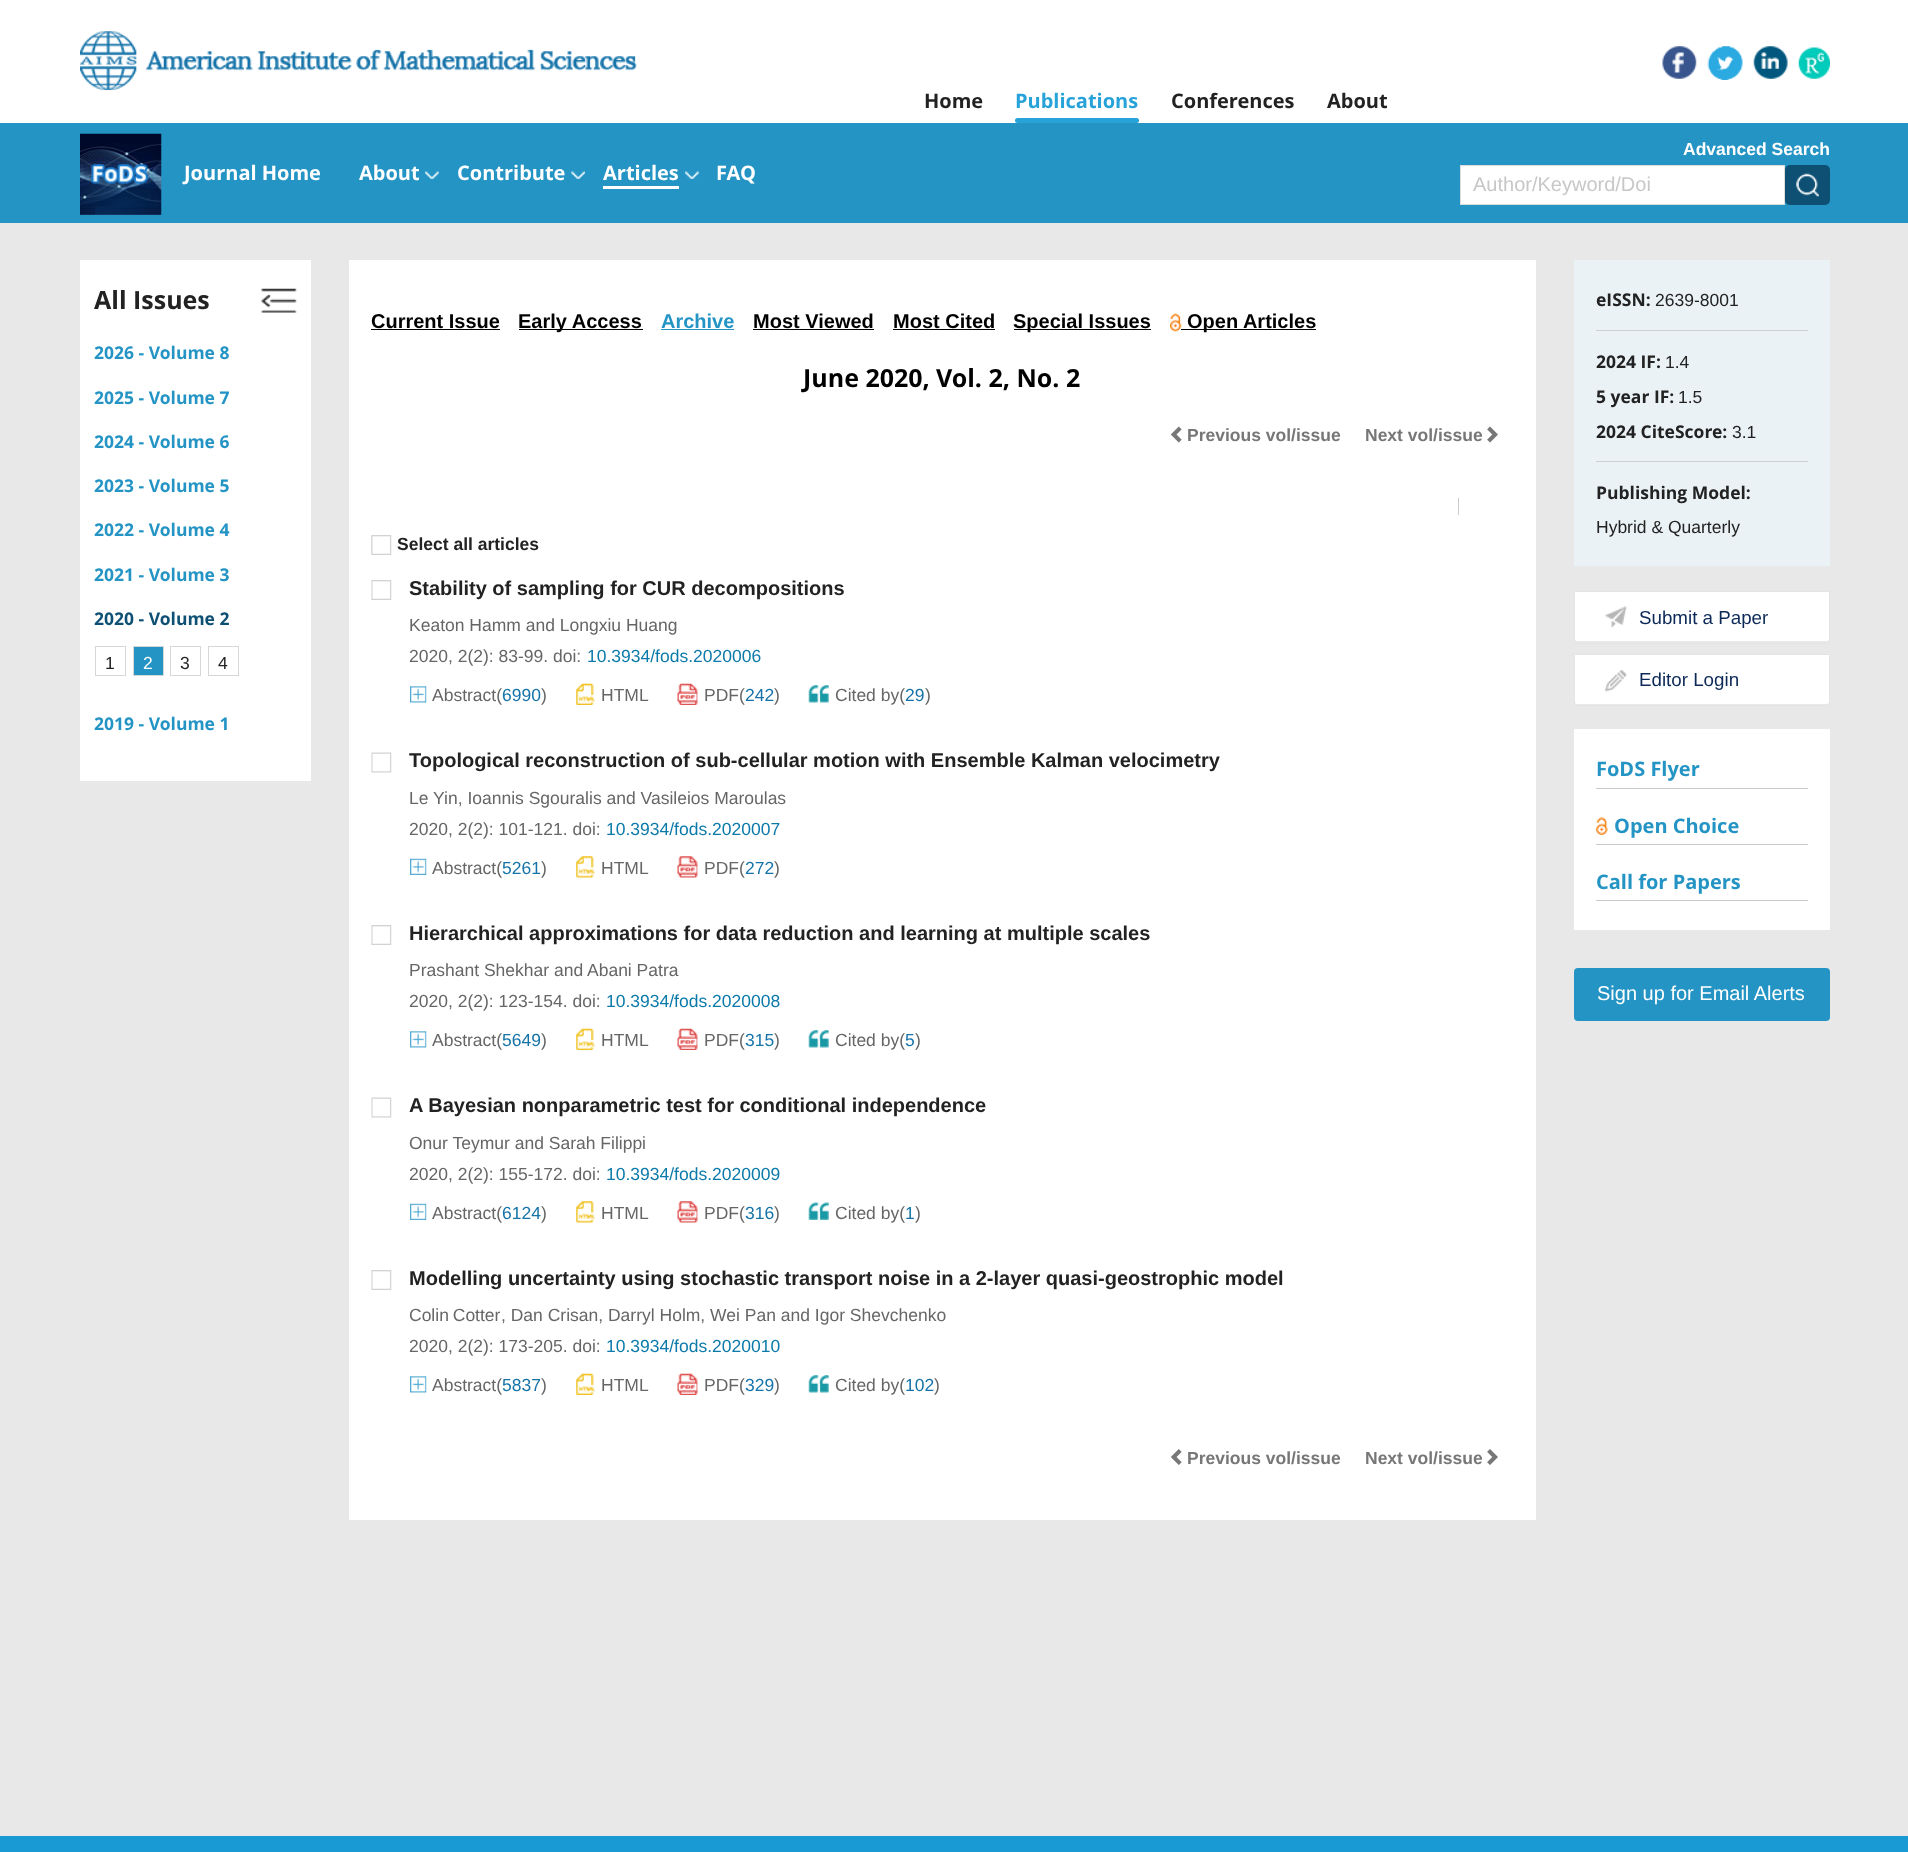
<svg xmlns="http://www.w3.org/2000/svg" width="1908" height="1852" viewBox="0 0 1908 1852">
  <rect width="100%" height="100%" fill="#e8e8e8"/>
  <rect x="0" y="0" width="1908" height="123" fill="#ffffff"/>
  <image x="80" y="31" width="557" height="59" href="img1.png"/>
  <image x="1662" y="46" width="35" height="33" href="img2.png"/>
  <image x="1707" y="46" width="36" height="34" href="img3.png"/>
  <image x="1753" y="46" width="35" height="33" href="img4.png"/>
  <image x="1798" y="47" width="32" height="32" href="img5.png"/>
  <text x="924" y="108" font-family="Open Sans" font-size="20" font-weight="bold" fill="#222222">Home</text>
  <text x="1015" y="108" font-family="Open Sans" font-size="20" font-weight="bold" fill="#27a3d9">Publications</text>
  <rect x="1015" y="118" width="124" height="5" rx="2.5" fill="#27a3d9"/>
  <text x="1171" y="108" font-family="Open Sans" font-size="20" font-weight="bold" fill="#222222">Conferences</text>
  <text x="1327" y="108" font-family="Open Sans" font-size="20" font-weight="bold" fill="#222222">About</text>
  <rect x="0" y="123" width="1908" height="100" fill="#2494c5"/>
  <image x="80" y="133" width="82" height="82" href="img6.png"/>
  <text x="184" y="180" font-family="Open Sans" font-size="20" font-weight="bold" fill="#ffffff">Journal Home</text>
  <text x="359" y="180" font-family="Open Sans" font-size="20" font-weight="bold" fill="#ffffff">About</text>
  <image x="425" y="171" width="14" height="8" href="img7.png"/>
  <text x="457" y="180" font-family="Open Sans" font-size="20" font-weight="bold" fill="#ffffff">Contribute</text>
  <image x="571" y="171" width="14" height="8" href="img8.png"/>
  <text x="603" y="180" font-family="Open Sans" font-size="20" font-weight="bold" fill="#ffffff">Articles</text>
  <rect x="603" y="186" width="76" height="3" fill="#ffffff"/>
  <image x="685" y="171" width="14" height="8" href="img7.png"/>
  <text x="716" y="180" font-family="Open Sans" font-size="20" font-weight="bold" fill="#ffffff">FAQ</text>
  <text x="1683" y="155" font-family="Liberation Sans" font-size="17.5" font-weight="bold" fill="#ffffff">Advanced Search</text>
  <rect x="1460.5" y="165.5" width="324" height="39" fill="#ffffff" stroke="#dcdcdc"/>
  <text x="1473" y="191" font-family="Liberation Sans" font-size="20" fill="#c7c7c7">Author/Keyword/Doi</text>
  <rect x="1785" y="165" width="45" height="40" rx="5" fill="#0e5073"/>
  <image x="1796" y="173" width="23" height="24" href="img9.png"/>
  <rect x="80" y="260" width="231" height="521" fill="#ffffff"/>
  <text x="94" y="309" font-family="Open Sans" font-size="25" font-weight="bold" fill="#222222">All Issues</text>
  <image x="261" y="288" width="36" height="25" href="img10.png"/>
  <text x="94" y="359" font-family="Open Sans" font-size="17.5" font-weight="bold" fill="#2494c5">2026 - Volume 8</text>
  <text x="94" y="404" font-family="Open Sans" font-size="17.5" font-weight="bold" fill="#2494c5">2025 - Volume 7</text>
  <text x="94" y="448" font-family="Open Sans" font-size="17.5" font-weight="bold" fill="#2494c5">2024 - Volume 6</text>
  <text x="94" y="492" font-family="Open Sans" font-size="17.5" font-weight="bold" fill="#2494c5">2023 - Volume 5</text>
  <text x="94" y="536" font-family="Open Sans" font-size="17.5" font-weight="bold" fill="#2494c5">2022 - Volume 4</text>
  <text x="94" y="581" font-family="Open Sans" font-size="17.5" font-weight="bold" fill="#2494c5">2021 - Volume 3</text>
  <text x="94" y="625" font-family="Open Sans" font-size="17.5" font-weight="bold" fill="#0e5073">2020 - Volume 2</text>
  <rect x="95.5" y="646.5" width="30" height="29" fill="none" stroke="#d7d7d7"/>
  <text x="105" y="669" font-family="Liberation Sans" font-size="17.5" fill="#222222">1</text>
  <rect x="133.5" y="646.5" width="30" height="29" fill="#2494c5" stroke="#d7d7d7"/>
  <text x="143" y="669" font-family="Liberation Sans" font-size="17.5" fill="#ffffff">2</text>
  <rect x="170.5" y="646.5" width="30" height="29" fill="none" stroke="#d7d7d7"/>
  <text x="180" y="669" font-family="Liberation Sans" font-size="17.5" fill="#222222">3</text>
  <rect x="208.5" y="646.5" width="30" height="29" fill="none" stroke="#d7d7d7"/>
  <text x="218" y="669" font-family="Liberation Sans" font-size="17.5" fill="#222222">4</text>
  <text x="94" y="730" font-family="Open Sans" font-size="17.5" font-weight="bold" fill="#2494c5">2019 - Volume 1</text>
  <rect x="349" y="260" width="1187" height="1260" fill="#ffffff"/>
  <text x="371" y="328" font-family="Liberation Sans" font-size="20" font-weight="bold" fill="#000000">Current Issue</text>
  <rect x="371" y="329" width="129" height="1" fill="#000000"/>
  <rect x="519" y="329" width="124" height="1" fill="#000000"/>
  <text x="518" y="328" font-family="Liberation Sans" font-size="20" font-weight="bold" fill="#000000">Early Access</text>
  <text x="661" y="328" font-family="Liberation Sans" font-size="20" font-weight="bold" fill="#2494c5">Archive</text>
  <rect x="661" y="329" width="73" height="1" fill="#2494c5"/>
  <text x="753" y="328" font-family="Liberation Sans" font-size="20" font-weight="bold" fill="#000000">Most Viewed</text>
  <rect x="753" y="329" width="121" height="1" fill="#000000"/>
  <text x="893" y="328" font-family="Liberation Sans" font-size="20" font-weight="bold" fill="#000000">Most Cited</text>
  <rect x="893" y="329" width="102" height="1" fill="#000000"/>
  <rect x="1014" y="329" width="137" height="1" fill="#000000"/>
  <text x="1013" y="328" font-family="Liberation Sans" font-size="20" font-weight="bold" fill="#000000">Special Issues</text>
  <image x="1170" y="313" width="12" height="19" href="img11.png"/>
  <rect x="1181" y="329" width="135" height="1" fill="#000000"/>
  <text x="1187" y="328" font-family="Liberation Sans" font-size="20" font-weight="bold" fill="#000000">Open Articles</text>
  <text x="803" y="387" font-family="Open Sans" font-size="25" font-weight="bold" fill="#000000">June 2020,</text>
  <text x="936" y="387" font-family="Open Sans" font-size="25" font-weight="bold" fill="#000000">Vol. 2, No. 2</text>
  <image x="1170" y="426" width="12" height="17" href="img12.png"/>
  <text x="1187" y="441" font-family="Liberation Sans" font-size="17.5" font-weight="bold" fill="#777777">Previous vol/issue</text>
  <text x="1365" y="441" font-family="Liberation Sans" font-size="17.5" font-weight="bold" fill="#777777">Next vol/issue</text>
  <image x="1487" y="426" width="11" height="17" href="img13.png"/>
  <rect x="1458" y="498" width="1" height="17" fill="#cccccc"/>
  <image x="371" y="535" width="21" height="20" href="img14.png"/>
  <text x="397" y="550" font-family="Liberation Sans" font-size="17.5" font-weight="bold" fill="#222222">Select all articles</text>
  <image x="371" y="580" width="21" height="20" href="img15.png"/>
  <text x="409" y="595" font-family="Liberation Sans" font-size="20" font-weight="bold" fill="#222222">Stability of sampling for CUR decompositions</text>
  <text x="409" y="631" font-family="Liberation Sans" font-size="17.5" fill="#666666">Keaton Hamm and Longxiu Huang</text>
  <text x="409" y="662" font-family="Liberation Sans" font-size="17.5" fill="#666666">2020, 2(2): 83-99. doi:</text>
  <text x="587" y="662" font-family="Liberation Sans" font-size="17.5" fill="#0b7aaa">10.3934/fods.2020006</text>
  <image x="410" y="686" width="17" height="17" href="img16.png"/>
  <text x="432" y="701" font-family="Liberation Sans" font-size="17.5" fill="#666666">Abstract(</text>
  <text x="502" y="701" font-family="Liberation Sans" font-size="17.5" fill="#1573a9">6990</text>
  <text x="541" y="701" font-family="Liberation Sans" font-size="17.5" fill="#666666">)</text>
  <image x="576" y="683" width="19" height="22" href="img17.png"/>
  <text x="601" y="701" font-family="Liberation Sans" font-size="17.5" fill="#666666">HTML</text>
  <image x="677" y="683" width="21" height="22" href="img18.png"/>
  <text x="704" y="701" font-family="Liberation Sans" font-size="17.5" fill="#666666">PDF(</text>
  <text x="745" y="701" font-family="Liberation Sans" font-size="17.5" fill="#1573a9">242</text>
  <text x="774" y="701" font-family="Liberation Sans" font-size="17.5" fill="#666666">)</text>
  <image x="808" y="685" width="21" height="18" href="img19.png"/>
  <text x="835" y="701" font-family="Liberation Sans" font-size="17.5" fill="#666666">Cited by(</text>
  <text x="905" y="701" font-family="Liberation Sans" font-size="17.5" fill="#1573a9">29</text>
  <text x="925" y="701" font-family="Liberation Sans" font-size="17.5" fill="#666666">)</text>
  <image x="371" y="752" width="21" height="21" href="img20.png"/>
  <text x="409" y="767" font-family="Liberation Sans" font-size="20" font-weight="bold" fill="#222222">Topological reconstruction of sub-cellular motion with Ensemble Kalman velocimetry</text>
  <text x="409" y="804" font-family="Liberation Sans" font-size="17.5" fill="#666666">Le Yin, Ioannis Sgouralis and Vasileios Maroulas</text>
  <text x="409" y="835" font-family="Liberation Sans" font-size="17.5" fill="#666666">2020, 2(2): 101-121. doi:</text>
  <text x="606" y="835" font-family="Liberation Sans" font-size="17.5" fill="#0b7aaa">10.3934/fods.2020007</text>
  <image x="410" y="858" width="17" height="17" href="img21.png"/>
  <text x="432" y="874" font-family="Liberation Sans" font-size="17.5" fill="#666666">Abstract(</text>
  <text x="502" y="874" font-family="Liberation Sans" font-size="17.5" fill="#1573a9">5261</text>
  <text x="541" y="874" font-family="Liberation Sans" font-size="17.5" fill="#666666">)</text>
  <image x="576" y="856" width="19" height="22" href="img22.png"/>
  <text x="601" y="874" font-family="Liberation Sans" font-size="17.5" fill="#666666">HTML</text>
  <image x="677" y="856" width="21" height="22" href="img23.png"/>
  <text x="704" y="874" font-family="Liberation Sans" font-size="17.5" fill="#666666">PDF(</text>
  <text x="745" y="874" font-family="Liberation Sans" font-size="17.5" fill="#1573a9">272</text>
  <text x="774" y="874" font-family="Liberation Sans" font-size="17.5" fill="#666666">)</text>
  <image x="371" y="925" width="21" height="20" href="img15.png"/>
  <text x="409" y="940" font-family="Liberation Sans" font-size="20" font-weight="bold" fill="#222222">Hierarchical approximations for data reduction and learning at multiple scales</text>
  <text x="409" y="976" font-family="Liberation Sans" font-size="17.5" fill="#666666">Prashant Shekhar and</text>
  <text x="587" y="976" font-family="Liberation Sans" font-size="17.5" fill="#666666">Abani Patra</text>
  <text x="409" y="1007" font-family="Liberation Sans" font-size="17.5" fill="#666666">2020, 2(2): 123-154. doi:</text>
  <text x="606" y="1007" font-family="Liberation Sans" font-size="17.5" fill="#0b7aaa">10.3934/fods.2020008</text>
  <image x="410" y="1031" width="17" height="17" href="img16.png"/>
  <text x="432" y="1046" font-family="Liberation Sans" font-size="17.5" fill="#666666">Abstract(</text>
  <text x="502" y="1046" font-family="Liberation Sans" font-size="17.5" fill="#1573a9">5649</text>
  <text x="541" y="1046" font-family="Liberation Sans" font-size="17.5" fill="#666666">)</text>
  <image x="576" y="1028" width="19" height="22" href="img17.png"/>
  <text x="601" y="1046" font-family="Liberation Sans" font-size="17.5" fill="#666666">HTML</text>
  <image x="677" y="1028" width="21" height="22" href="img18.png"/>
  <text x="704" y="1046" font-family="Liberation Sans" font-size="17.5" fill="#666666">PDF(</text>
  <text x="745" y="1046" font-family="Liberation Sans" font-size="17.5" fill="#1573a9">315</text>
  <text x="774" y="1046" font-family="Liberation Sans" font-size="17.5" fill="#666666">)</text>
  <image x="808" y="1030" width="21" height="18" href="img19.png"/>
  <text x="835" y="1046" font-family="Liberation Sans" font-size="17.5" fill="#666666">Cited by(</text>
  <text x="905" y="1046" font-family="Liberation Sans" font-size="17.5" fill="#1573a9">5</text>
  <text x="915" y="1046" font-family="Liberation Sans" font-size="17.5" fill="#666666">)</text>
  <image x="371" y="1097" width="21" height="21" href="img20.png"/>
  <text x="409" y="1112" font-family="Liberation Sans" font-size="20" font-weight="bold" fill="#222222">A Bayesian nonparametric test for conditional independence</text>
  <text x="409" y="1149" font-family="Liberation Sans" font-size="17.5" fill="#666666">Onur Teymur and Sarah Filippi</text>
  <text x="409" y="1180" font-family="Liberation Sans" font-size="17.5" fill="#666666">2020, 2(2): 155-172. doi:</text>
  <text x="606" y="1180" font-family="Liberation Sans" font-size="17.5" fill="#0b7aaa">10.3934/fods.2020009</text>
  <image x="410" y="1203" width="17" height="17" href="img21.png"/>
  <text x="432" y="1219" font-family="Liberation Sans" font-size="17.5" fill="#666666">Abstract(</text>
  <text x="502" y="1219" font-family="Liberation Sans" font-size="17.5" fill="#1573a9">6124</text>
  <text x="541" y="1219" font-family="Liberation Sans" font-size="17.5" fill="#666666">)</text>
  <image x="576" y="1201" width="19" height="22" href="img22.png"/>
  <text x="601" y="1219" font-family="Liberation Sans" font-size="17.5" fill="#666666">HTML</text>
  <image x="677" y="1201" width="21" height="22" href="img23.png"/>
  <text x="704" y="1219" font-family="Liberation Sans" font-size="17.5" fill="#666666">PDF(</text>
  <text x="745" y="1219" font-family="Liberation Sans" font-size="17.5" fill="#1573a9">316</text>
  <text x="774" y="1219" font-family="Liberation Sans" font-size="17.5" fill="#666666">)</text>
  <image x="808" y="1202" width="21" height="18" href="img24.png"/>
  <text x="835" y="1219" font-family="Liberation Sans" font-size="17.5" fill="#666666">Cited by(</text>
  <text x="905" y="1219" font-family="Liberation Sans" font-size="17.5" fill="#1573a9">1</text>
  <text x="915" y="1219" font-family="Liberation Sans" font-size="17.5" fill="#666666">)</text>
  <image x="371" y="1270" width="21" height="20" href="img15.png"/>
  <text x="409" y="1285" font-family="Liberation Sans" font-size="20" font-weight="bold" fill="#222222">Modelling uncertainty using stochastic transport noise in a 2-layer quasi-geostrophic model</text>
  <text x="409" y="1321" word-spacing="-1" font-family="Liberation Sans" font-size="17.5" fill="#666666">Colin Cotter</text>
  <text x="501" y="1321" font-family="Liberation Sans" font-size="17.5" fill="#666666">, Dan Crisan, Darryl Holm, Wei Pan and Igor Shevchenko</text>
  <text x="409" y="1352" font-family="Liberation Sans" font-size="17.5" fill="#666666">2020, 2(2): 173-205. doi:</text>
  <text x="606" y="1352" font-family="Liberation Sans" font-size="17.5" fill="#0b7aaa">10.3934/fods.2020010</text>
  <image x="410" y="1376" width="17" height="17" href="img16.png"/>
  <text x="432" y="1391" font-family="Liberation Sans" font-size="17.5" fill="#666666">Abstract(</text>
  <text x="502" y="1391" font-family="Liberation Sans" font-size="17.5" fill="#1573a9">5837</text>
  <text x="541" y="1391" font-family="Liberation Sans" font-size="17.5" fill="#666666">)</text>
  <image x="576" y="1373" width="19" height="22" href="img17.png"/>
  <text x="601" y="1391" font-family="Liberation Sans" font-size="17.5" fill="#666666">HTML</text>
  <image x="677" y="1373" width="21" height="22" href="img18.png"/>
  <text x="704" y="1391" font-family="Liberation Sans" font-size="17.5" fill="#666666">PDF(</text>
  <text x="745" y="1391" font-family="Liberation Sans" font-size="17.5" fill="#1573a9">329</text>
  <text x="774" y="1391" font-family="Liberation Sans" font-size="17.5" fill="#666666">)</text>
  <image x="808" y="1375" width="21" height="18" href="img19.png"/>
  <text x="835" y="1391" font-family="Liberation Sans" font-size="17.5" fill="#666666">Cited by(</text>
  <text x="905" y="1391" font-family="Liberation Sans" font-size="17.5" fill="#1573a9">102</text>
  <text x="934" y="1391" font-family="Liberation Sans" font-size="17.5" fill="#666666">)</text>
  <image x="1170" y="1449" width="12" height="16" href="img25.png"/>
  <text x="1187" y="1464" font-family="Liberation Sans" font-size="17.5" font-weight="bold" fill="#777777">Previous vol/issue</text>
  <text x="1365" y="1464" font-family="Liberation Sans" font-size="17.5" font-weight="bold" fill="#777777">Next vol/issue</text>
  <image x="1487" y="1449" width="11" height="16" href="img26.png"/>
  <rect x="1574" y="260" width="256" height="306" fill="#eaf2f5"/>
  <text x="1596" y="306" font-family="Open Sans" font-size="17.5" font-weight="bold" fill="#222222">eISSN:</text>
  <text x="1655" y="306" font-family="Liberation Sans" font-size="17.5" fill="#222222">2639-8001</text>
  <rect x="1596" y="330" width="212" height="1" fill="#cfcfcf"/>
  <text x="1596" y="368" font-family="Open Sans" font-size="17.5" font-weight="bold" fill="#222222">2024 IF:</text>
  <text x="1665" y="368" font-family="Liberation Sans" font-size="17.5" fill="#222222">1.4</text>
  <text x="1596" y="403" font-family="Open Sans" font-size="17.5" font-weight="bold" fill="#222222">5 year IF:</text>
  <text x="1678" y="403" font-family="Liberation Sans" font-size="17.5" fill="#222222">1.5</text>
  <text x="1596" y="438" font-family="Open Sans" font-size="17.5" font-weight="bold" fill="#222222">2024 CiteScore:</text>
  <text x="1732" y="438" font-family="Liberation Sans" font-size="17.5" fill="#222222">3.1</text>
  <rect x="1596" y="461" width="212" height="1" fill="#cfcfcf"/>
  <text x="1596" y="499" font-family="Open Sans" font-size="17.5" font-weight="bold" fill="#222222">Publishing Model:</text>
  <text x="1596" y="533" font-family="Liberation Sans" font-size="17.5" fill="#222222">Hybrid &amp; Quarterly</text>
  <rect x="1574" y="591" width="256" height="50" rx="4" fill="#ffffff"/>
  <rect x="1574.5" y="591.5" width="255" height="52" fill="none" stroke="#e4e4e4"/>
  <image x="1605" y="606" width="22" height="22" href="img27.png"/>
  <text x="1639" y="624" font-family="Liberation Sans" font-size="18.75" fill="#0d2958">Submit a Paper</text>
  <rect x="1574" y="654" width="256" height="50" rx="4" fill="#ffffff"/>
  <rect x="1574.5" y="654.5" width="255" height="51" fill="none" stroke="#e4e4e4"/>
  <image x="1605" y="670" width="22" height="22" href="img28.png"/>
  <text x="1639" y="686" font-family="Liberation Sans" font-size="18.75" fill="#0d2958">Editor Login</text>
  <rect x="1574" y="729" width="256" height="201" fill="#ffffff"/>
  <rect x="1596" y="788" width="212" height="1" fill="#cacaca"/>
  <text x="1596" y="776" font-family="Open Sans" font-size="20" font-weight="bold" fill="#2494c5">FoDS Flyer</text>
  <rect x="1596" y="844" width="212" height="1" fill="#cacaca"/>
  <image x="1596" y="817" width="12" height="18" href="img29.png"/>
  <text x="1614" y="833" font-family="Open Sans" font-size="20" font-weight="bold" fill="#2494c5">Open Choice</text>
  <rect x="1596" y="900" width="212" height="1" fill="#cacaca"/>
  <text x="1596" y="889" font-family="Open Sans" font-size="20" font-weight="bold" fill="#2494c5">Call for Papers</text>
  <rect x="1574" y="968" width="256" height="53" rx="4" fill="#2494c5"/>
  <text x="1597" y="1000" font-family="Liberation Sans" font-size="20" fill="#ffffff">Sign up for Email Alerts</text>
  <rect x="0" y="1836" width="1908" height="16" fill="#199ad4"/>
</svg>
